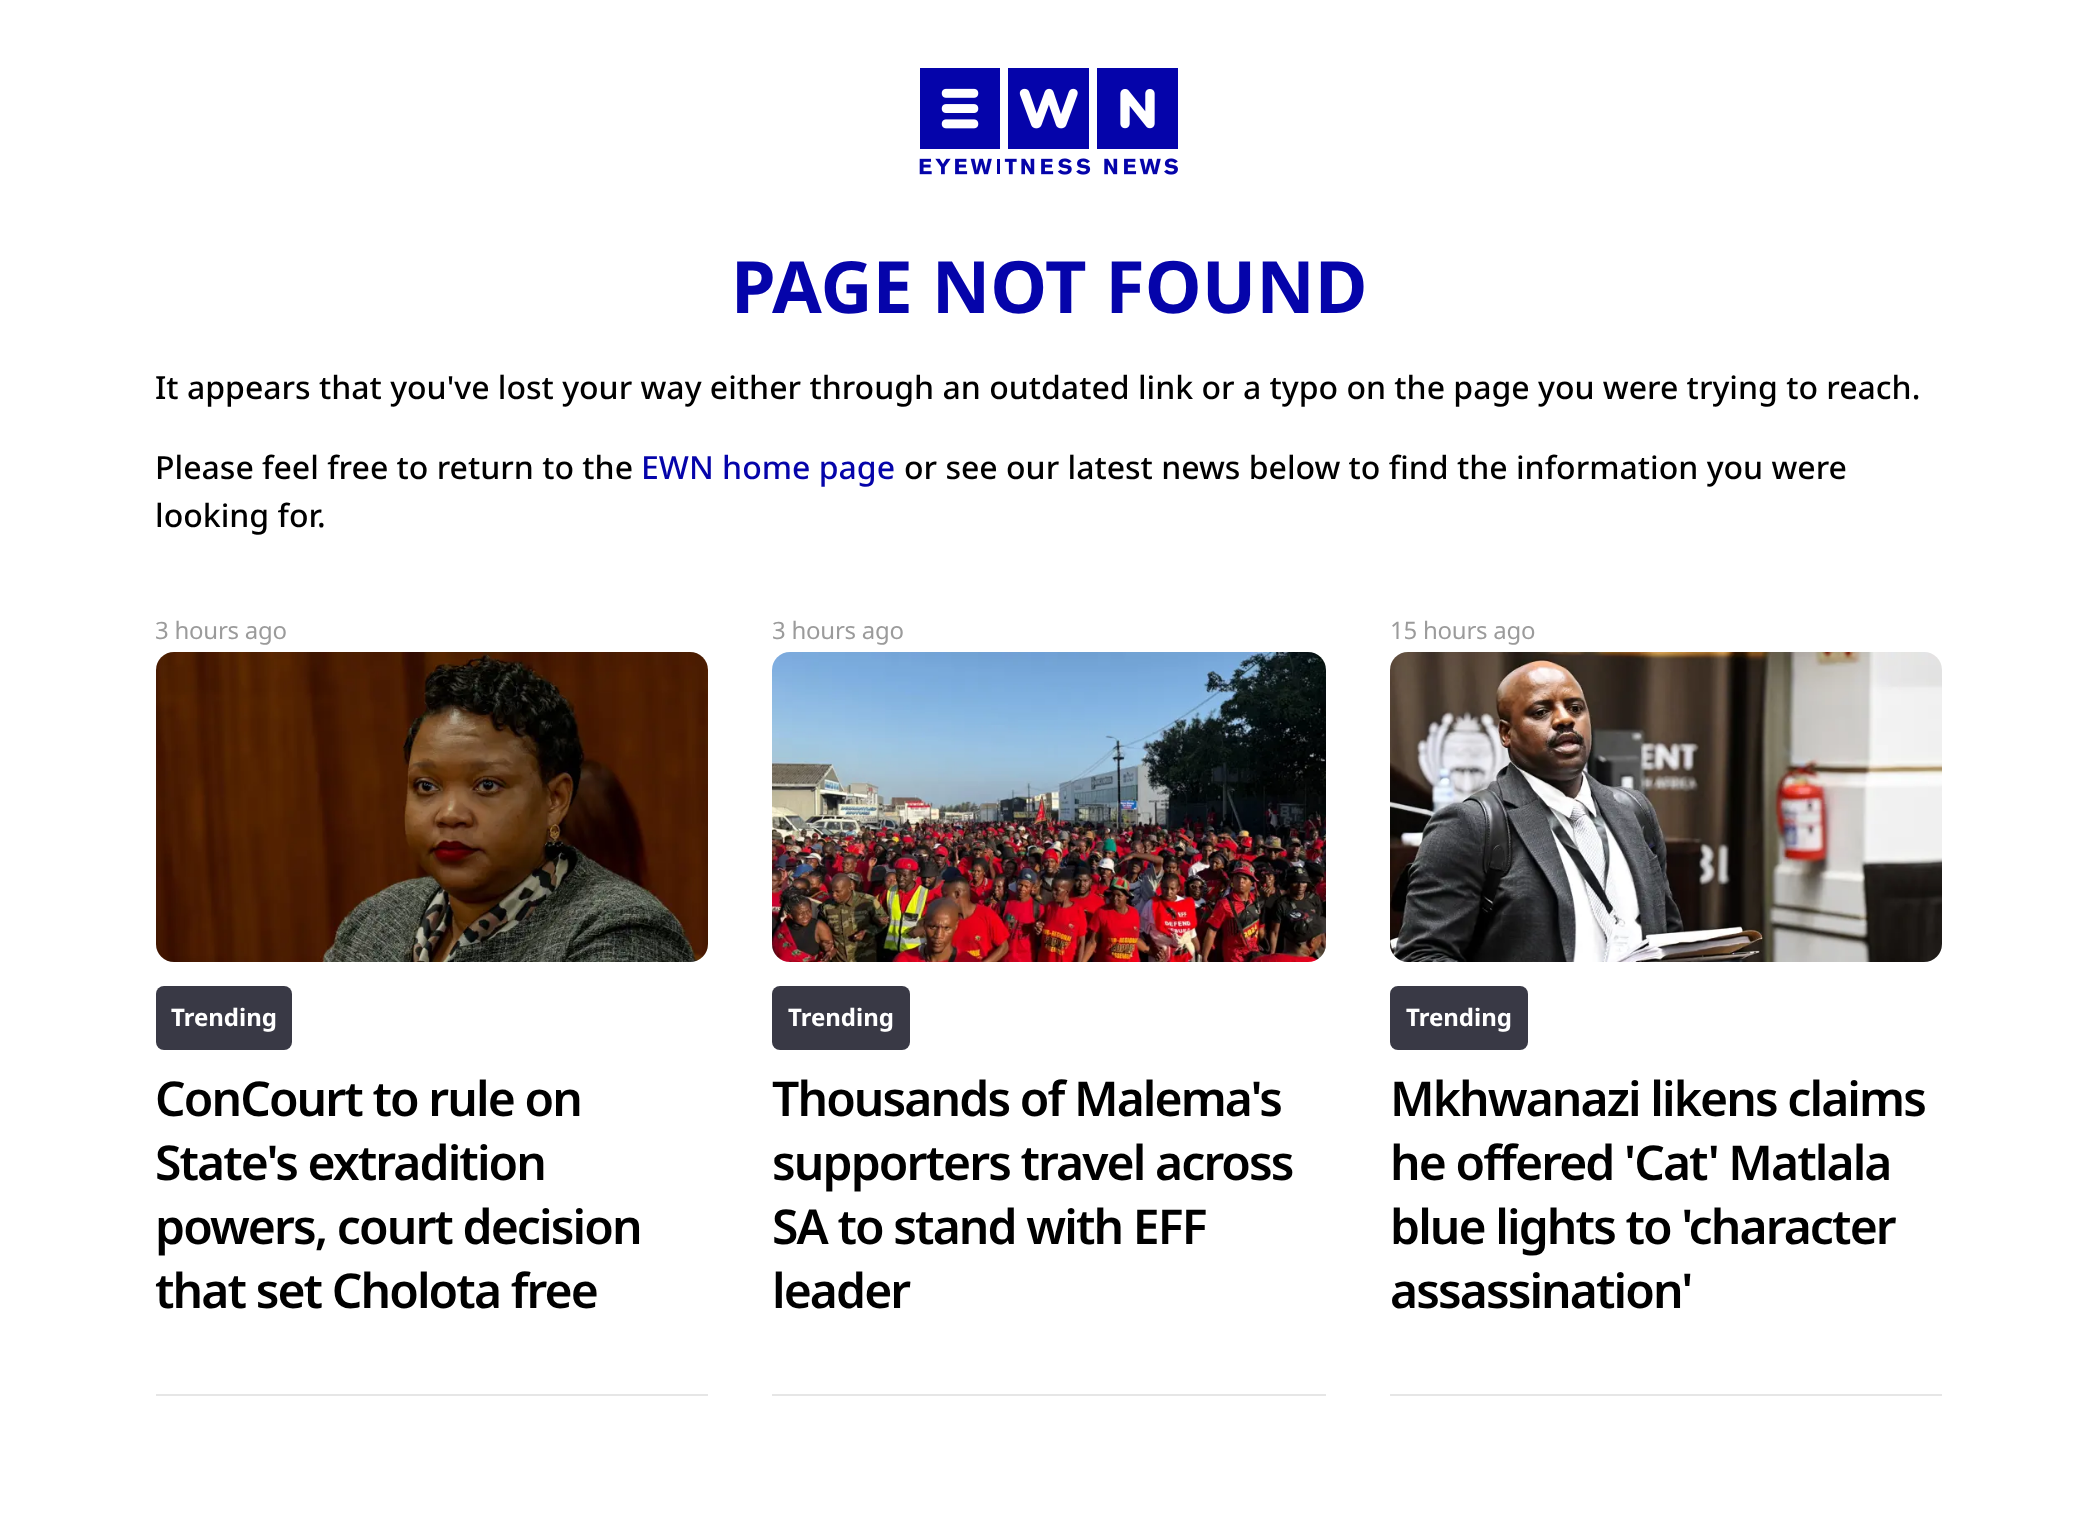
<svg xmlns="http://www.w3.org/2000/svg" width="2098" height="1531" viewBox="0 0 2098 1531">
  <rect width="100%" height="100%" fill="#ffffff"/>
  <image x="919" y="68" width="259" height="107" href="img1.png"/>
  <text x="731" y="313" font-family="Noto Sans" font-size="72" font-weight="bold" fill="#0504aa">PAGE NOT FOUND</text>
  <text x="155" y="399" font-family="Noto Sans" font-size="32" font-weight="500" fill="#000000">It appears that you've lost your way either through an outdated link or a typo on the page you were trying to reach.</text>
  <text x="155" y="479" font-family="Noto Sans" font-size="32" font-weight="500" fill="#000000">Please feel free to return to the</text>
  <text x="641" y="479" font-family="Noto Sans" font-size="32" font-weight="500" fill="#0504aa">EWN home page</text>
  <text x="904" y="479" font-family="Noto Sans" font-size="32" font-weight="500" fill="#000000">or see our latest news below to find the information you were</text>
  <text x="155" y="527" font-family="Noto Sans" font-size="32" font-weight="500" fill="#000000">looking for.</text>
  <rect x="156" y="1394" width="552" height="2" fill="#e6e6e6"/>
  <text x="155" y="639" font-family="Noto Sans" font-size="24" letter-spacing="-0.25" fill="#9b9b9b">3 hours ago</text>
  <image x="156" y="652" width="552" height="310" href="img2.png"/>
  <rect x="156" y="986" width="136" height="64" rx="8" fill="#393945"/>
  <text x="171" y="1026" font-family="Noto Sans" font-size="24" font-weight="bold" fill="#ffffff">Trending</text>
  <text x="155" y="1116" font-family="Noto Sans" font-size="48" font-weight="600" letter-spacing="-1.9" fill="#000000">ConCourt to rule on</text>
  <text x="155" y="1180" font-family="Noto Sans" font-size="48" font-weight="600" letter-spacing="-1.9" fill="#000000">State's extradition</text>
  <text x="155" y="1244" font-family="Noto Sans" font-size="48" font-weight="600" letter-spacing="-1.9" fill="#000000">powers, court decision</text>
  <text x="155" y="1308" font-family="Noto Sans" font-size="48" font-weight="600" letter-spacing="-1.9" fill="#000000">that set Cholota free</text>
  <rect x="772" y="1394" width="554" height="2" fill="#e6e6e6"/>
  <text x="772" y="639" font-family="Noto Sans" font-size="24" letter-spacing="-0.25" fill="#9b9b9b">3 hours ago</text>
  <image x="772" y="652" width="554" height="310" href="img3.png"/>
  <rect x="772" y="986" width="138" height="64" rx="8" fill="#393945"/>
  <text x="788" y="1026" font-family="Noto Sans" font-size="24" font-weight="bold" fill="#ffffff">Trending</text>
  <text x="772" y="1116" font-family="Noto Sans" font-size="48" font-weight="600" letter-spacing="-1.9" fill="#000000">Thousands of Malema's</text>
  <text x="772" y="1180" font-family="Noto Sans" font-size="48" font-weight="600" letter-spacing="-1.9" fill="#000000">supporters travel across</text>
  <text x="772" y="1244" font-family="Noto Sans" font-size="48" font-weight="600" letter-spacing="-1.9" fill="#000000">SA to stand with EFF</text>
  <text x="772" y="1308" font-family="Noto Sans" font-size="48" font-weight="600" letter-spacing="-1.9" fill="#000000">leader</text>
  <rect x="1390" y="1394" width="552" height="2" fill="#e6e6e6"/>
  <text x="1390" y="639" font-family="Noto Sans" font-size="24" letter-spacing="-0.25" fill="#9b9b9b">15 hours ago</text>
  <image x="1390" y="652" width="552" height="310" href="img4.png"/>
  <rect x="1390" y="986" width="138" height="64" rx="8" fill="#393945"/>
  <text x="1406" y="1026" font-family="Noto Sans" font-size="24" font-weight="bold" fill="#ffffff">Trending</text>
  <text x="1390" y="1116" font-family="Noto Sans" font-size="48" font-weight="600" letter-spacing="-1.9" fill="#000000">Mkhwanazi likens claims</text>
  <text x="1390" y="1180" font-family="Noto Sans" font-size="48" font-weight="600" letter-spacing="-1.9" fill="#000000">he offered 'Cat' Matlala</text>
  <text x="1390" y="1244" font-family="Noto Sans" font-size="48" font-weight="600" letter-spacing="-1.9" fill="#000000">blue lights to 'character</text>
  <text x="1390" y="1308" font-family="Noto Sans" font-size="48" font-weight="600" letter-spacing="-1.9" fill="#000000">assassination'</text>
</svg>
